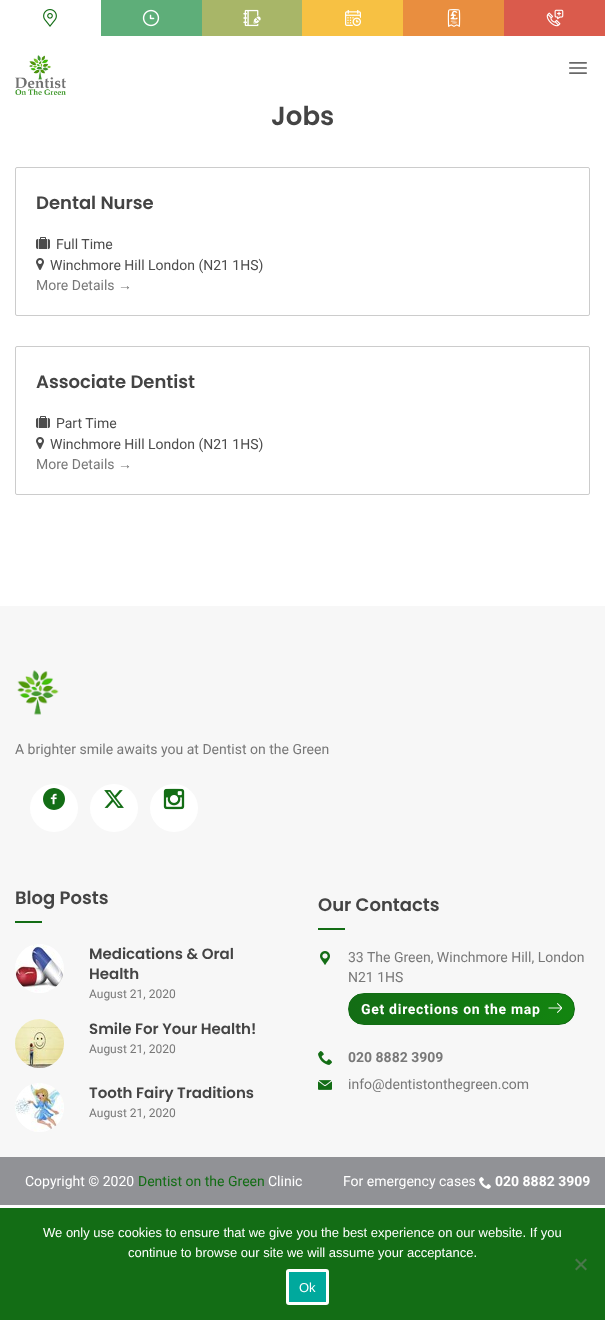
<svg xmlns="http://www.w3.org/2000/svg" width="605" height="1320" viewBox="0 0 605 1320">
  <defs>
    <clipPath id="clip1"><rect x="348" y="993" width="227" height="32" rx="16"/></clipPath>
    <linearGradient id="g1" gradientUnits="userSpaceOnUse" x1="349" y1="1009" x2="574" y2="1009"><stop offset="0" stop-color="#136d15"/><stop offset="1" stop-color="#138510"/></linearGradient>
  </defs>
  <rect width="100%" height="100%" fill="#ffffff"/>
  <image x="43" y="9" width="14" height="18" href="img1.png"/>
  <rect x="101" y="0" width="101" height="36" fill="#5eae79"/>
  <image x="142" y="9" width="18" height="18" href="img2.png"/>
  <rect x="202" y="0" width="100" height="36" fill="#a8b668"/>
  <image x="243" y="9" width="18" height="18" href="img3.png"/>
  <rect x="302" y="0" width="101" height="36" fill="#f7c143"/>
  <image x="345" y="10" width="16" height="16" href="img4.png"/>
  <rect x="403" y="0" width="101" height="36" fill="#e98e3f"/>
  <image x="447" y="9" width="14" height="18" href="img5.png"/>
  <rect x="504" y="0" width="101" height="36" fill="#da5b4c"/>
  <image x="546" y="9" width="18" height="18" href="img6.png"/>
  <image x="15" y="55" width="51" height="40" href="img7.png"/>
  <image x="569" y="62" width="18" height="12" href="img8.png"/>
  <text x="271" y="125" font-family="Poppins" font-size="26" font-weight="600" fill="#444444">Jobs</text>
  <rect x="15.5" y="167.5" width="574" height="148" rx="1.5" fill="none" stroke="#cccccc"/>
  <text x="36" y="209" font-family="Poppins" font-size="18" font-weight="600" fill="#444444">Dental Nurse</text>
  <image x="36" y="237" width="14" height="12" href="img9.png"/>
  <text x="56" y="249" font-family="Roboto" font-size="14" fill="#4c4c4c">Full Time</text>
  <image x="36" y="258" width="8" height="12" href="img10.png"/>
  <text x="50" y="270" font-family="Roboto" font-size="14" fill="#4c4c4c">Winchmore Hill London (N21 1HS)</text>
  <text x="36" y="290" font-family="Roboto" font-size="14" fill="#787878">More Details</text>
  <text x="118" y="290" font-family="Liberation Sans" font-size="14" fill="#787878">→</text>
  <rect x="15.5" y="346.5" width="574" height="148" rx="1.5" fill="none" stroke="#cccccc"/>
  <text x="36" y="388" font-family="Poppins" font-size="18" font-weight="600" fill="#444444">Associate Dentist</text>
  <image x="36" y="416" width="14" height="12" href="img9.png"/>
  <text x="56" y="428" font-family="Roboto" font-size="14" fill="#4c4c4c">Part Time</text>
  <image x="36" y="437" width="8" height="12" href="img10.png"/>
  <text x="50" y="449" font-family="Roboto" font-size="14" fill="#4c4c4c">Winchmore Hill London (N21 1HS)</text>
  <text x="36" y="469" font-family="Roboto" font-size="14" fill="#787878">More Details</text>
  <text x="118" y="469" font-family="Liberation Sans" font-size="14" fill="#787878">→</text>
  <rect x="0" y="606" width="605" height="551" fill="#f7f7f7"/>
  <image x="17" y="670" width="42" height="45" href="img11.png"/>
  <text x="15" y="754" font-family="Roboto" font-size="14" fill="#787878">A brighter smile awaits you at Dentist on the Green</text>
  <circle cx="54" cy="808" r="24" fill="#ffffff"/>
  <image x="43" y="788" width="22" height="22" href="img12.png"/>
  <circle cx="114" cy="808" r="24" fill="#ffffff"/>
  <image x="104" y="790" width="20" height="18" href="img13.png"/>
  <circle cx="174" cy="808" r="24" fill="#ffffff"/>
  <image x="163" y="788" width="22" height="22" href="img14.png"/>
  <text x="15" y="904" font-family="Poppins" font-size="18" font-weight="600" fill="#444444">Blog Posts</text>
  <rect x="15" y="921" width="27" height="2" fill="#136d15"/>
  <image x="15" y="944" width="49" height="49" href="img15.png"/>
  <text x="89" y="959" font-family="Poppins" font-size="15" font-weight="600" fill="#444444">Medications &amp; Oral</text>
  <text x="89" y="979" font-family="Poppins" font-size="15" font-weight="600" fill="#444444">Health</text>
  <text x="89" y="998" font-family="Roboto" font-size="12" fill="#787878">August 21, 2020</text>
  <image x="15" y="1019" width="49" height="49" href="img16.png"/>
  <text x="89" y="1034" font-family="Poppins" font-size="15" font-weight="600" fill="#444444">Smile For Your Health!</text>
  <text x="89" y="1053" font-family="Roboto" font-size="12" fill="#787878">August 21, 2020</text>
  <image x="15" y="1083" width="49" height="49" href="img17.png"/>
  <text x="89" y="1098" font-family="Poppins" font-size="15" font-weight="600" fill="#444444">Tooth Fairy Traditions</text>
  <text x="89" y="1117" font-family="Roboto" font-size="12" fill="#787878">August 21, 2020</text>
  <text x="318" y="911" font-family="Poppins" font-size="18" font-weight="600" fill="#444444">Our Contacts</text>
  <rect x="318" y="928" width="27" height="2" fill="#136d15"/>
  <image x="320" y="951" width="10" height="14" href="img18.png"/>
  <text x="348" y="962" font-family="Roboto" font-size="14" fill="#787878">33 The Green, Winchmore Hill, London</text>
  <text x="348" y="982" font-family="Roboto" font-size="14" fill="#787878">N21 1HS</text>
  <g clip-path="url(#clip1)">
    <rect x="349" y="994" width="225" height="30" fill="url(#g1)"/>
  </g>
  <rect x="348.5" y="993.5" width="226" height="31" rx="15.5" fill="none" stroke="#136d15"/>
  <text x="361" y="1014" font-family="Roboto" font-size="14" font-weight="bold" letter-spacing="0.7" fill="#ffffff">Get directions on the map</text>
  <image x="548" y="1003" width="14" height="10" href="img19.png"/>
  <image x="318" y="1051" width="14" height="14" href="img20.png"/>
  <text x="348" y="1062" font-family="Roboto" font-size="14" font-weight="bold" fill="#787878">020 8882 3909</text>
  <image x="318" y="1080" width="14" height="10" href="img21.png"/>
  <text x="348" y="1089" font-family="Roboto" font-size="14" fill="#787878">info@dentistonthegreen.com</text>
  <rect x="0" y="1157" width="605" height="48" fill="#919296"/>
  <text x="25" y="1186" font-family="Roboto" font-size="14" fill="#ffffff">Copyright © 2020</text>
  <text x="138" y="1186" font-family="Roboto" font-size="14" fill="#136d15">Dentist on the Green</text>
  <text x="268" y="1186" font-family="Roboto" font-size="14" fill="#ffffff">Clinic</text>
  <text x="343" y="1186" font-family="Roboto" font-size="14" fill="#ffffff">For emergency cases</text>
  <image x="479" y="1177" width="12" height="12" href="img22.png"/>
  <text x="495" y="1186" font-family="Roboto" font-size="14" font-weight="bold" fill="#ffffff">020 8882 3909</text>
  <rect x="0" y="1208" width="605" height="112" fill="#136d15"/>
  <text x="43" y="1237" font-family="Liberation Sans" font-size="13" fill="#ffffff">We only use cookies to ensure that we give you the best experience on our website. If you</text>
  <text x="128" y="1257" font-family="Liberation Sans" font-size="13" fill="#ffffff">continue to browse our site we will assume your acceptance.</text>
  <path d="M585.5 1258.5L587 1260L576.5 1270.5L575 1269Z" fill="#4a774b"/>
  <path d="M575 1260L576.5 1258.5L587 1269L585.5 1270.5Z" fill="#4a774b"/>
  <rect x="287.5" y="1270.5" width="40" height="33" rx="1.5" fill="#00a99d" stroke="#ffffff" stroke-width="3"/>
  <text x="299" y="1292" font-family="Liberation Sans" font-size="13" fill="#ffffff">Ok</text>
</svg>
